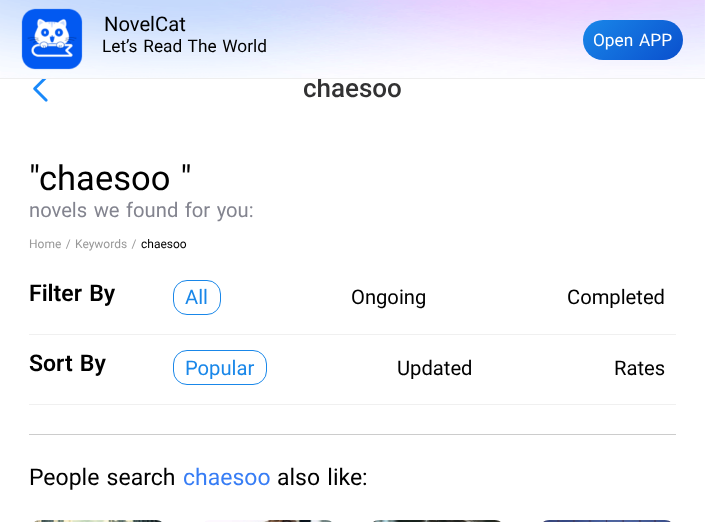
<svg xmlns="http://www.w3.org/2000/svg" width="705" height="522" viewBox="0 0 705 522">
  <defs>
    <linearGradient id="g1" gradientUnits="userSpaceOnUse" x1="600" y1="4.4" x2="666" y2="76"><stop offset="0" stop-color="#1987e9"/><stop offset="1" stop-color="#0a4fcd"/></linearGradient>
  </defs>
  <rect width="100%" height="100%" fill="#ffffff"/>
  <text x="303" y="97" font-family="Roboto" font-size="26" font-weight="500" fill="#323233">chaesoo</text>
  <image x="0" y="0" width="705" height="78" href="img1.png"/>
  <rect x="0" y="78" width="705" height="1" fill="#eeeeee"/>
  <image x="21" y="8" width="62" height="62" href="img2.png"/>
  <text x="104" y="31" font-family="Roboto" font-size="20.2" fill="#000000">NovelCat</text>
  <text x="102" y="52" word-spacing="1.5" font-family="Roboto" font-size="17.25" fill="#000000">Let’s Read The World</text>
  <rect x="583" y="20" width="100" height="40" rx="20" fill="url(#g1)"/>
  <text x="593" y="46" word-spacing="1.5" font-family="Roboto" font-size="17.25" fill="#ffffff">Open APP</text>
  <image x="33" y="79" width="15" height="23" href="img3.png"/>
  <text x="29" y="190" word-spacing="1.5" font-family="Roboto" font-size="34.5" fill="#000000">"chaesoo "</text>
  <text x="29" y="217" word-spacing="1.5" font-family="Roboto" font-size="20.2" fill="#83848f">novels we found for you:</text>
  <text x="29" y="248" word-spacing="1.5" font-family="Roboto" font-size="12" fill="#999999">Home /</text>
  <text x="75" y="248" word-spacing="1.5" font-family="Roboto" font-size="12" fill="#999999">Keywords /</text>
  <text x="141" y="248" font-family="Roboto" font-size="12" fill="#000000">chaesoo</text>
  <rect x="29" y="334" width="647" height="1" fill="#f0f0f0"/>
  <text x="29" y="301" word-spacing="1.5" font-family="Roboto" font-size="23" font-weight="600" fill="#000000">Filter By</text>
  <rect x="173.5" y="280.5" width="47" height="34" rx="13.5" fill="none" stroke="#1987e9"/>
  <text x="185" y="304" font-family="Roboto" font-size="20.2" fill="#1987e9">All</text>
  <text x="351" y="304" font-family="Roboto" font-size="20.2" fill="#000000">Ongoing</text>
  <text x="567" y="304" font-family="Roboto" font-size="20.2" fill="#000000">Completed</text>
  <rect x="29" y="404" width="647" height="1" fill="#f0f0f0"/>
  <text x="29" y="371" word-spacing="1.5" font-family="Roboto" font-size="23" font-weight="600" fill="#000000">Sort By</text>
  <rect x="173.5" y="350.5" width="93" height="34" rx="13.5" fill="none" stroke="#1987e9"/>
  <text x="185" y="375" font-family="Roboto" font-size="20.2" fill="#1987e9">Popular</text>
  <text x="397" y="375" font-family="Roboto" font-size="20.2" fill="#000000">Updated</text>
  <text x="614" y="375" font-family="Roboto" font-size="20.2" fill="#000000">Rates</text>
  <rect x="29" y="434" width="647" height="1" fill="#cccccc"/>
  <text x="29" y="485" word-spacing="1.5" font-family="Roboto" font-size="23" fill="#000000">People search</text>
  <text x="183" y="485" font-family="Roboto" font-size="23" fill="#377df5">chaesoo</text>
  <text x="277" y="485" word-spacing="1.5" font-family="Roboto" font-size="23" fill="#000000">also like:</text>
  <image x="34" y="520" width="128" height="2" href="img4.png"/>
  <image x="205" y="520" width="127" height="2" href="img5.png"/>
  <image x="373" y="520" width="128" height="2" href="img6.png"/>
  <image x="543" y="520" width="128" height="2" href="img7.png"/>
</svg>
